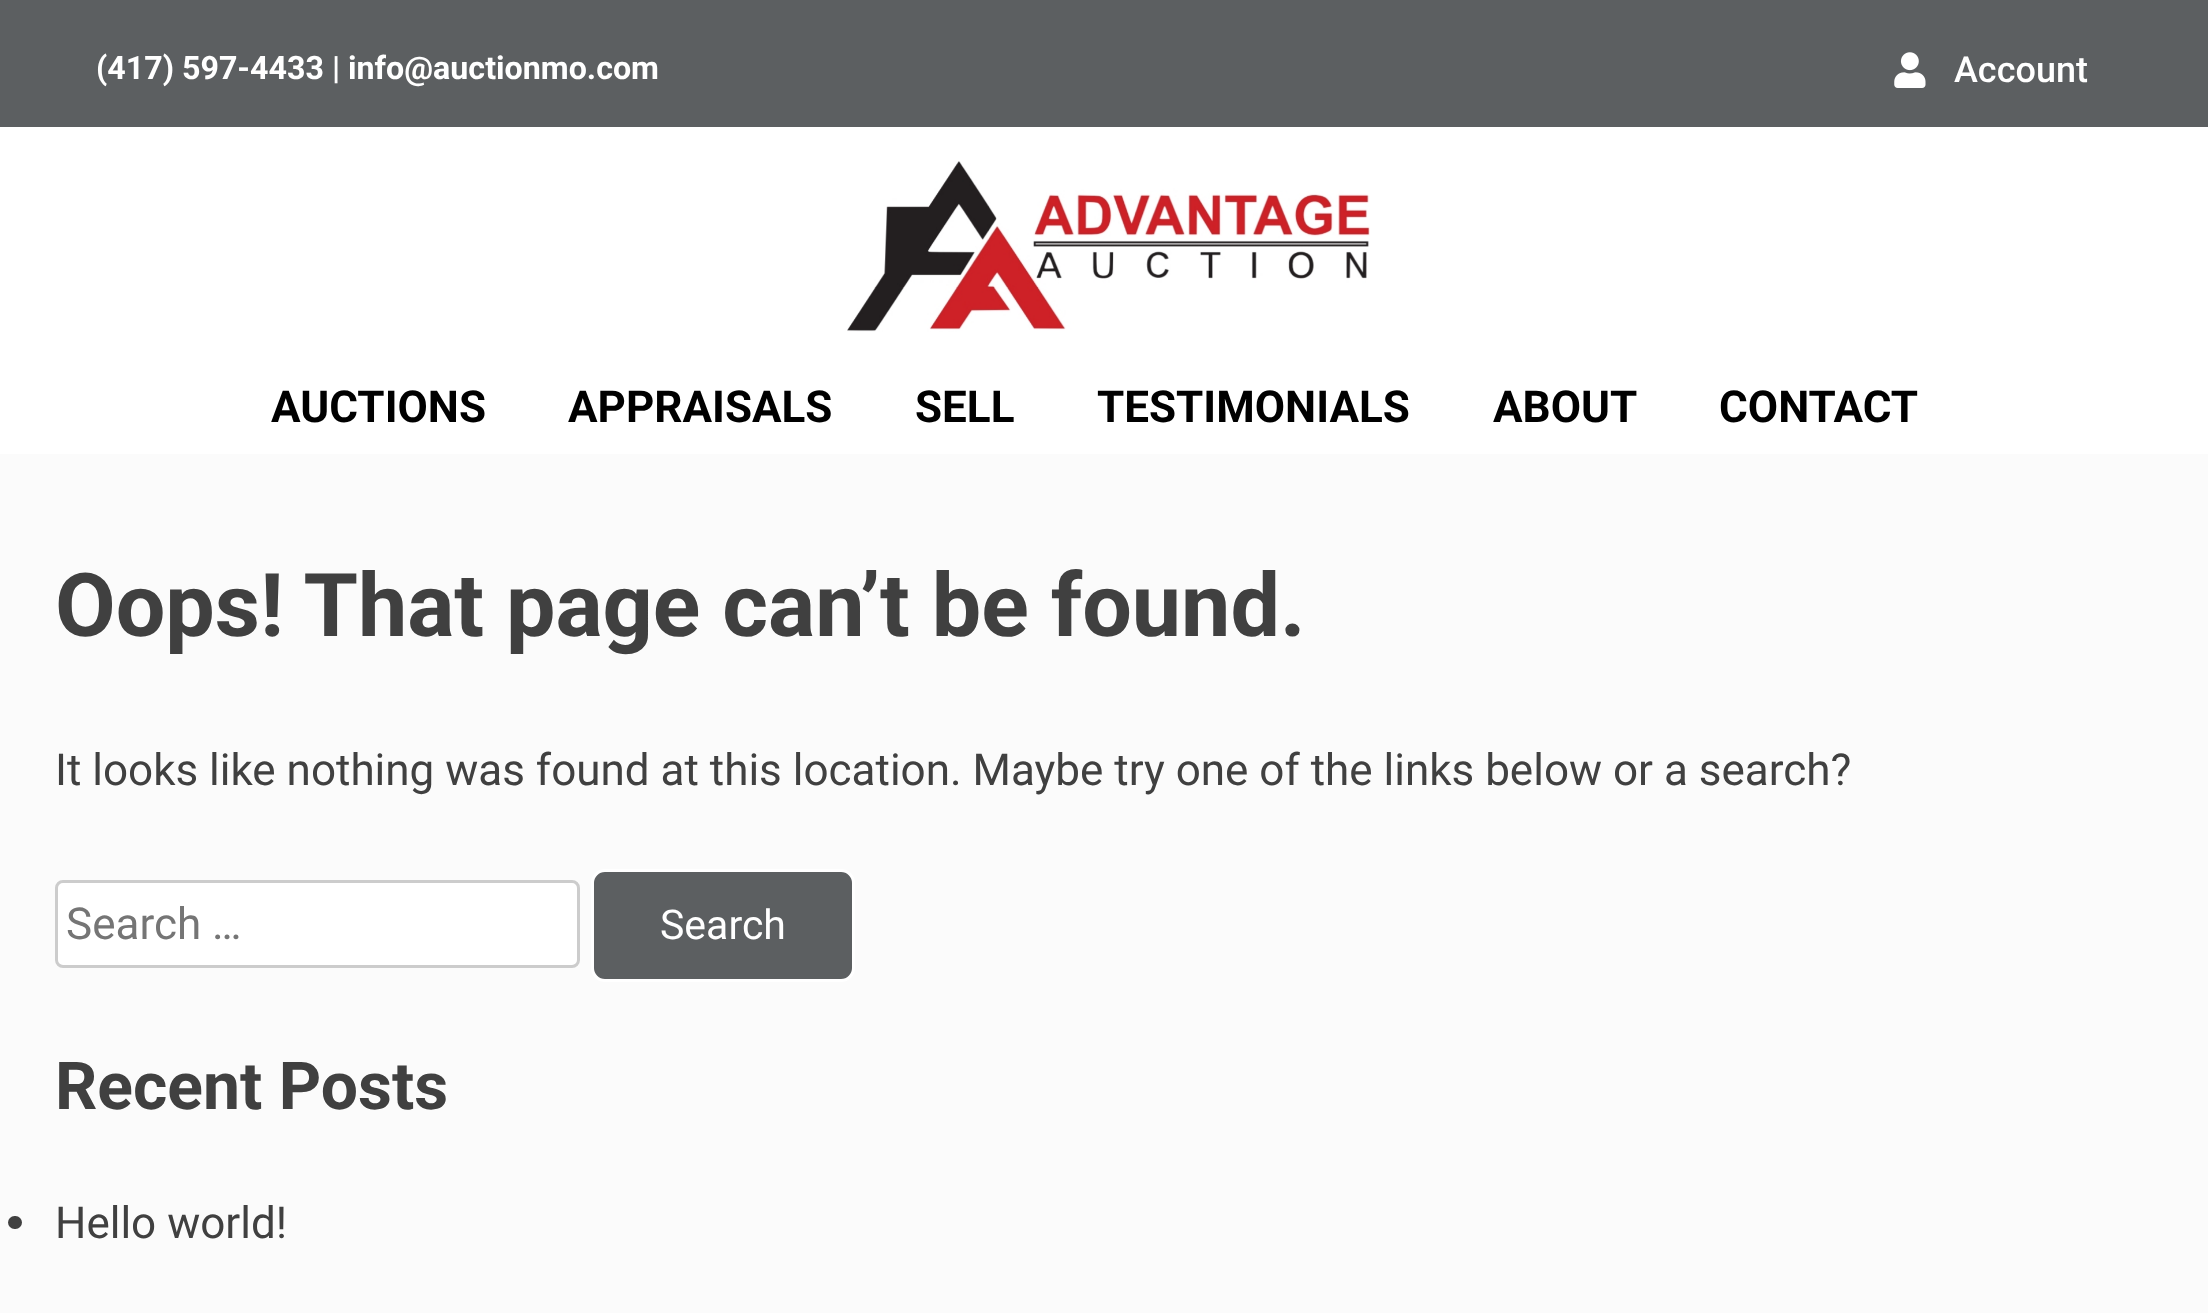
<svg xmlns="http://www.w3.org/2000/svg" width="2208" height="1313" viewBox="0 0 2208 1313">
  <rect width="100%" height="100%" fill="#fbfbfb"/>
  <rect x="0" y="0" width="2208" height="127" fill="#5c5f61"/>
  <text x="96" y="79" font-family="Roboto" font-size="32.2" font-weight="bold" fill="#ffffff">(417) 597-4433 | info@auctionmo.com</text>
  <image x="1894" y="52" width="32" height="36" href="img1.png"/>
  <text x="1954" y="82" font-family="Roboto" font-size="36" font-weight="500" fill="#ffffff">Account</text>
  <rect x="0" y="127" width="2208" height="327" fill="#ffffff"/>
  <image x="847" y="161" width="523" height="171" href="img2.png"/>
  <text x="271" y="422" font-family="Roboto" font-size="44" font-weight="bold" fill="#000000">AUCTIONS</text>
  <text x="568" y="422" font-family="Roboto" font-size="44" font-weight="bold" fill="#000000">APPRAISALS</text>
  <text x="915" y="422" font-family="Roboto" font-size="44" font-weight="bold" fill="#000000">SELL</text>
  <text x="1097" y="422" font-family="Roboto" font-size="44" font-weight="bold" fill="#000000">TESTIMONIALS</text>
  <text x="1493" y="422" font-family="Roboto" font-size="44" font-weight="bold" fill="#000000">ABOUT</text>
  <text x="1719" y="422" font-family="Roboto" font-size="44" font-weight="bold" fill="#000000">CONTACT</text>
  <text x="55" y="636" font-family="Roboto" font-size="88" font-weight="bold" fill="#404040">Oops! That page can’t be found.</text>
  <text x="55" y="785" font-family="Roboto" font-size="44" fill="#404040">It looks like nothing was found at this location. Maybe try one of the links below or a search?</text>
  <rect x="56.5" y="881.5" width="522" height="85" rx="6.5" fill="#ffffff" stroke="#cccccc" stroke-width="3"/>
  <text x="66" y="939" font-family="Roboto" font-size="44" fill="#757575">Search …</text>
  <rect x="592.5" y="870.5" width="261" height="110" rx="12.5" fill="#5c5f61" stroke="#ffffff" stroke-width="3"/>
  <text x="660" y="939" font-family="Roboto" font-size="41" fill="#ffffff">Search</text>
  <text x="55" y="1109" font-family="Roboto" font-size="66" font-weight="bold" fill="#404040">Recent Posts</text>
  <rect x="8" y="1216" width="14" height="13" rx="6.5" fill="#404040"/>
  <text x="55" y="1238" font-family="Roboto" font-size="44" fill="#404040">Hello world!</text>
</svg>
